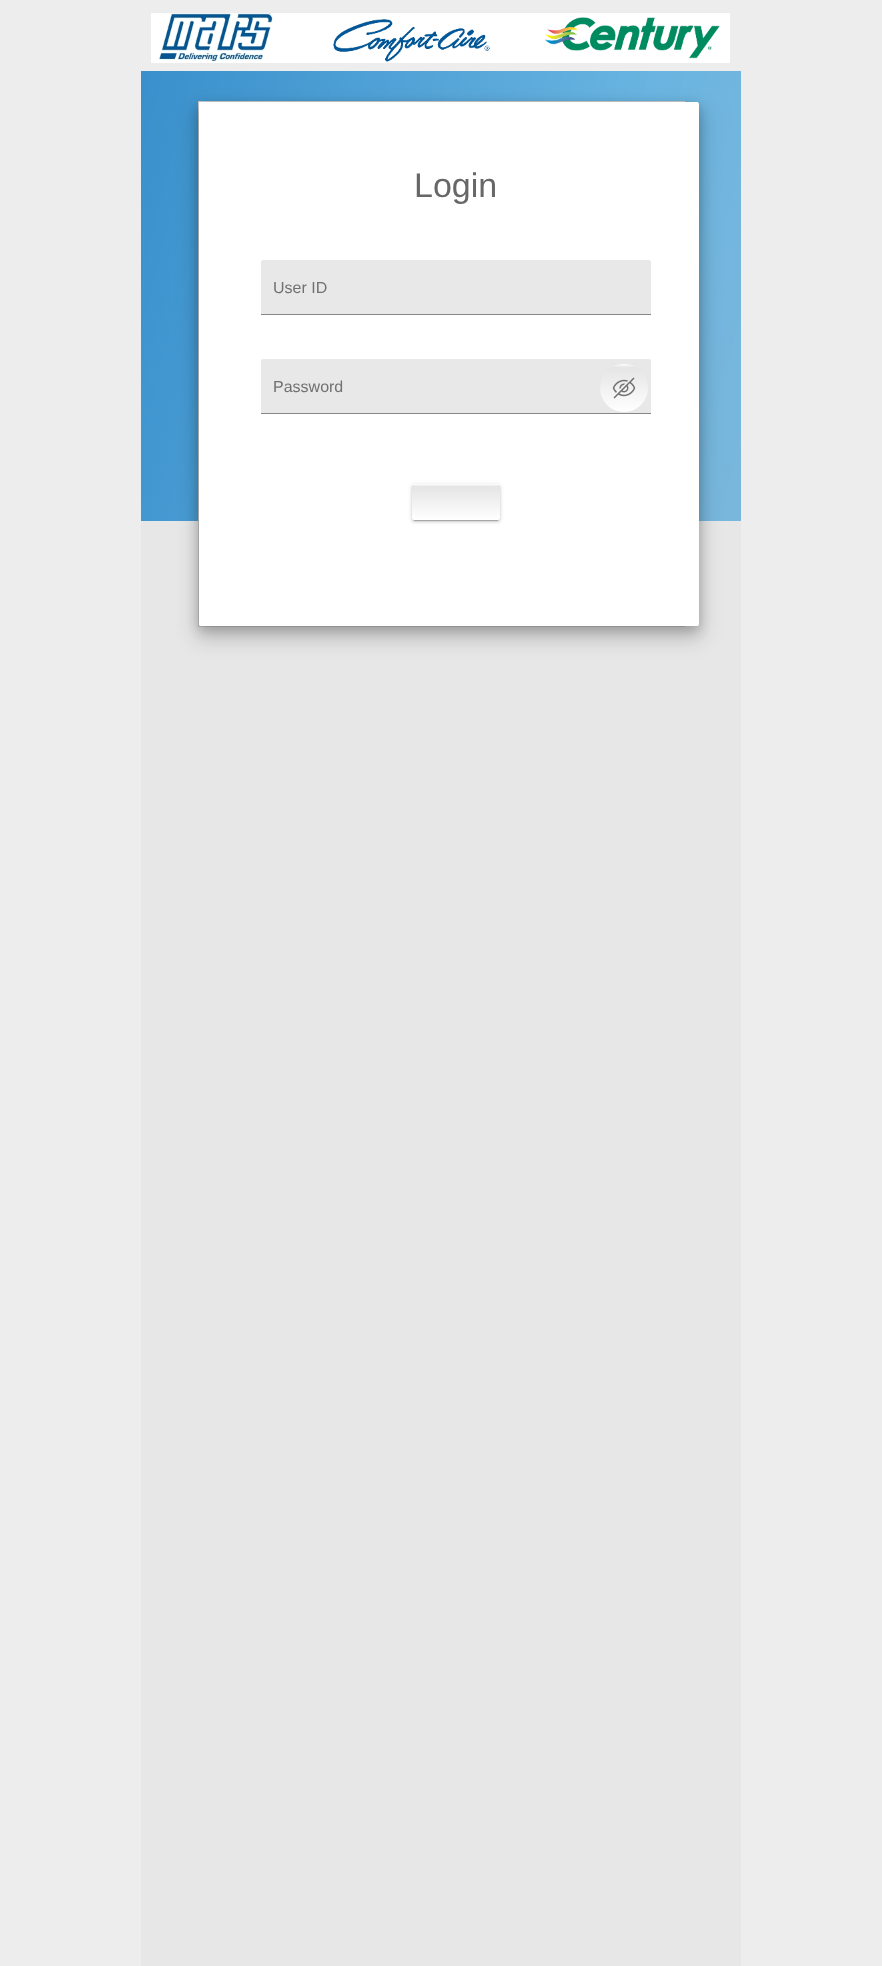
<svg xmlns="http://www.w3.org/2000/svg" width="882" height="1966" viewBox="0 0 882 1966">
  <defs>
    <filter id="blur1" x="-50%" y="-200%" width="200%" height="500%"><feGaussianBlur stdDeviation="10"/></filter>
    <filter id="blur2" x="-50%" y="-200%" width="200%" height="500%"><feGaussianBlur stdDeviation="6"/></filter>
    <linearGradient id="g1" gradientUnits="userSpaceOnUse" x1="624" y1="364" x2="624" y2="412"><stop offset="0" stop-color="#ffffff"/><stop offset="0.07" stop-color="#e5e5e5"/><stop offset="1" stop-color="#ffffff"/></linearGradient>
    <filter id="blur3" x="-50%" y="-200%" width="200%" height="500%"><feGaussianBlur stdDeviation="2.5"/></filter>
    <filter id="blur4" x="-50%" y="-200%" width="200%" height="500%"><feGaussianBlur stdDeviation="1"/></filter>
    <filter id="blur5" x="-50%" y="-200%" width="200%" height="500%"><feGaussianBlur stdDeviation="0.5"/></filter>
    <linearGradient id="g2" gradientUnits="userSpaceOnUse" x1="456" y1="484" x2="456" y2="520"><stop offset="0" stop-color="#ffffff"/><stop offset="0.07" stop-color="#e5e5e5"/><stop offset="1" stop-color="#ffffff"/></linearGradient>
  </defs>
  <rect width="100%" height="100%" fill="#ededed"/>
  <image x="151" y="13" width="579" height="50" href="img1.png"/>
  <rect x="141" y="521" width="600" height="1445" fill="#e7e7e7"/>
  <image x="141" y="71" width="600" height="450" href="img2.png"/>
  <rect x="199" y="102" width="2" height="524" fill="#ffffff"/>
  <rect x="198.5" y="101.5" width="486" height="525" fill="none" stroke="#cccccc"/>
  <rect x="196" y="109" width="506" height="530" rx="5" fill="#000000" fill-opacity="0.19" filter="url(#blur1)"/>
  <rect x="199" y="106" width="500" height="524" rx="2" fill="#000000" fill-opacity="0.2" filter="url(#blur2)"/>
  <rect x="199" y="102" width="500" height="524" rx="2" fill="#ffffff"/>
  <text x="414" y="197" font-family="Liberation Sans" font-size="34" fill="#676767">Login</text>
  <path d="M263 260H649C650 260 651 261 651 262V315H261V262C261 261 262 260 263 260Z" fill="#e8e8e8"/>
  <text x="273" y="293" font-family="Liberation Sans" font-size="16" fill="#717171">User ID</text>
  <rect x="261" y="314" width="390" height="1" fill="#878787"/>
  <path d="M263 359H649C650 359 651 360 651 361V414H261V361C261 360 262 359 263 359Z" fill="#e8e8e8"/>
  <text x="273" y="392" font-family="Liberation Sans" font-size="16" fill="#717171">Password</text>
  <rect x="261" y="413" width="390" height="1" fill="#878787"/>
  <circle cx="624" cy="388" r="24" fill="url(#g1)"/>
  <image x="612" y="377" width="24" height="22" href="img3.png"/>
  <rect x="412" y="485" width="88" height="36" rx="2" fill="#000000" fill-opacity="0.12" filter="url(#blur3)"/>
  <rect x="412" y="486" width="88" height="36" rx="2" fill="#000000" fill-opacity="0.14" filter="url(#blur4)"/>
  <rect x="414" y="489" width="84" height="32" fill="#000000" fill-opacity="0.2" filter="url(#blur5)"/>
  <rect x="412" y="484" width="88" height="36" rx="2" fill="url(#g2)"/>
</svg>
